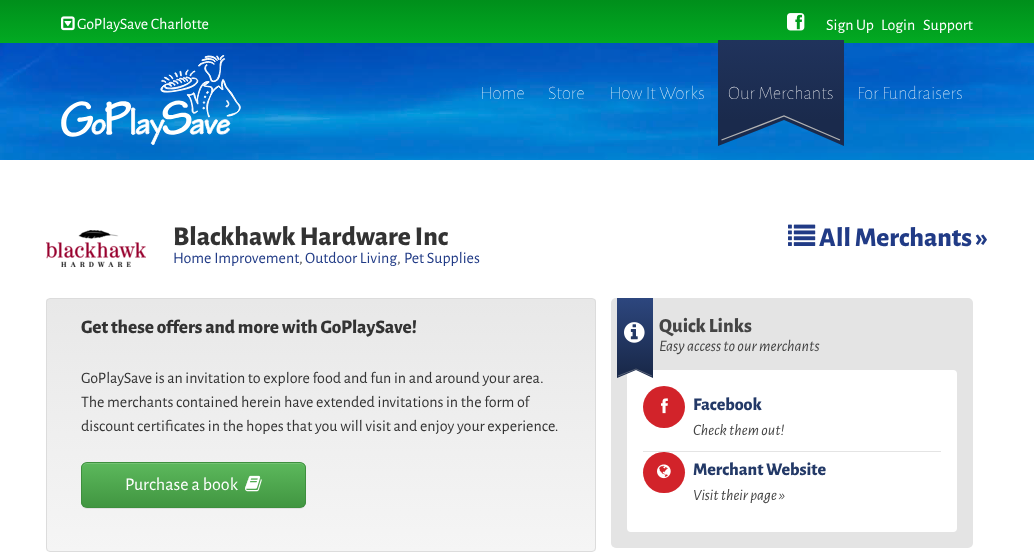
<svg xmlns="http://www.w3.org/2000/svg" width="1034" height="558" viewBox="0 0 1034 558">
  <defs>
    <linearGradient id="g1" gradientUnits="userSpaceOnUse" x1="517" y1="0" x2="517" y2="43"><stop offset="0" stop-color="#008f1b"/><stop offset="1" stop-color="#02aa22"/></linearGradient>
    <clipPath id="clip1"><rect x="718" y="40" width="126" height="108"/></clipPath>
    <linearGradient id="g2" gradientUnits="userSpaceOnUse" x1="781" y1="-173" x2="781" y2="120"><stop offset="0" stop-color="#304b86"/><stop offset="1" stop-color="#1a2a4c"/></linearGradient>
    <clipPath id="clip2"><rect x="46" y="298" width="550" height="254" rx="4"/></clipPath>
    <linearGradient id="g3" gradientUnits="userSpaceOnUse" x1="321" y1="299" x2="321" y2="551"><stop offset="0" stop-color="#e8e8e8"/><stop offset="1" stop-color="#f5f5f5"/></linearGradient>
    <filter id="blur1" x="-50%" y="-200%" width="200%" height="500%"><feGaussianBlur stdDeviation="0.5"/></filter>
    <clipPath id="clip3"><rect x="81" y="462" width="225" height="46" rx="6"/></clipPath>
    <linearGradient id="g4" gradientUnits="userSpaceOnUse" x1="194" y1="463" x2="194" y2="507"><stop offset="0" stop-color="#5cb85c"/><stop offset="1" stop-color="#419641"/></linearGradient>
    <clipPath id="clip4"><rect x="617" y="298" width="36" height="80"/></clipPath>
    <linearGradient id="g5" gradientUnits="userSpaceOnUse" x1="635" y1="287" x2="635" y2="370"><stop offset="0" stop-color="#304b86"/><stop offset="1" stop-color="#1a2a4c"/></linearGradient>
  </defs>
  <rect width="100%" height="100%" fill="#ffffff"/>
  <rect x="0" y="0" width="1034" height="43" fill="url(#g1)"/>
  <image x="61" y="16" width="14" height="15" href="img1.png"/>
  <text x="77" y="29" font-family="Alegreya Sans" font-size="16" fill="#ffffff">GoPlaySave Charlotte</text>
  <image x="787" y="13" width="18" height="18" href="img2.png"/>
  <text x="826" y="30" font-family="Alegreya Sans" font-size="16" fill="#ffffff">Sign Up</text>
  <text x="881" y="30" font-family="Alegreya Sans" font-size="16" fill="#ffffff">Login</text>
  <text x="923" y="30" font-family="Alegreya Sans" font-size="16" fill="#ffffff">Support</text>
  <image x="0" y="43" width="1034" height="117" href="img3.png"/>
  <image x="61" y="55" width="180" height="90" href="img4.png"/>
  <text x="480" y="99" font-family="Alegreya Sans" font-size="19" font-weight="100" fill="#ffffff">Home</text>
  <text x="548" y="99" font-family="Alegreya Sans" font-size="19" font-weight="100" fill="#ffffff">Store</text>
  <text x="609" y="99" font-family="Alegreya Sans" font-size="19" font-weight="100" fill="#ffffff">How It Works</text>
  <g clip-path="url(#clip1)">
    <path d="M718-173H844V146L784 120L718 146Z" fill="url(#g2)" fill-rule="evenodd"/>
  </g>
  <path d="M721.5 140L784 116L840 140" fill="none" stroke="#b3b3b3" stroke-width="1.3"/>
  <text x="728" y="99" font-family="Alegreya Sans" font-size="19" font-weight="100" fill="#ffffff">Our Merchants</text>
  <text x="857" y="99" font-family="Alegreya Sans" font-size="19" font-weight="100" fill="#ffffff">For Fundraisers</text>
  <image x="46" y="230" width="100" height="37" href="img5.png"/>
  <text x="173" y="245" font-family="Alegreya Sans" font-size="27.25" font-weight="800" fill="#333333">Blackhawk Hardware Inc</text>
  <image x="788" y="224" width="28" height="22" href="img6.png"/>
  <text x="819" y="246" font-family="Alegreya Sans" font-size="27.25" font-weight="800" fill="#213b86">All Merchants »</text>
  <text x="173" y="263" font-family="Alegreya Sans" font-size="16" fill="#213b86">Home Improvement</text>
  <text x="299" y="263" font-family="Alegreya Sans" font-size="16" fill="#333333">,</text>
  <text x="305" y="263" font-family="Alegreya Sans" font-size="16" fill="#213b86">Outdoor Living</text>
  <text x="397" y="263" font-family="Alegreya Sans" font-size="16" fill="#333333">,</text>
  <text x="404" y="263" font-family="Alegreya Sans" font-size="16" fill="#213b86">Pet Supplies</text>
  <g clip-path="url(#clip2)">
    <rect x="46" y="299" width="550" height="252" fill="url(#g3)"/>
  </g>
  <rect x="46.5" y="298.5" width="549" height="253" rx="3.5" fill="none" stroke="#dcdcdc"/>
  <text x="81" y="333" font-family="Alegreya Sans" font-size="19.25" font-weight="800" fill="#333333">Get these offers and more with GoPlaySave!</text>
  <text x="81" y="383" font-family="Alegreya Sans" font-size="16" fill="#333333">GoPlaySave is an invitation to explore food and fun in and around your area.</text>
  <text x="81" y="407" font-family="Alegreya Sans" font-size="16" fill="#333333">The merchants contained herein have extended invitations in the form of</text>
  <text x="81" y="431" font-family="Alegreya Sans" font-size="16" fill="#333333">discount certificates in the hopes that you will visit and enjoy your experience.</text>
  <rect x="81" y="463" width="225" height="46" rx="6" fill="#000000" fill-opacity="0.07" filter="url(#blur1)"/>
  <g clip-path="url(#clip3)">
    <rect x="81" y="463" width="225" height="44" fill="url(#g4)"/>
  </g>
  <path d="M87 464H300C303 464 305 466 305 469V468C305 465 303 463 300 463H87C84 463 82 465 82 468V469C82 466 84 464 87 464Z" fill="#74c374"/>
  <rect x="81.5" y="462.5" width="224" height="45" rx="5.5" fill="none" stroke="#3e8f3e"/>
  <text x="125" y="490" font-family="Alegreya Sans" font-size="18" fill="#ffffff">Purchase a book</text>
  <image x="245" y="475" width="17" height="17" href="img7.png"/>
  <rect x="611" y="298" width="362" height="250" rx="5" fill="#e4e4e4"/>
  <rect x="627" y="370" width="330" height="162" rx="4" fill="#ffffff"/>
  <g clip-path="url(#clip4)">
    <path d="M617 287H653V378L636 370L617 378Z" fill="url(#g5)" fill-rule="evenodd"/>
  </g>
  <path d="M618 376L636 369L652 376" fill="none" stroke="#b3b3b3" stroke-width="0.4"/>
  <image x="624" y="322" width="21" height="21" href="img8.png"/>
  <text x="659" y="332" font-family="Alegreya Sans" font-size="20" font-weight="800" fill="#454545">Quick Links</text>
  <text x="659" y="351" font-family="Alegreya Sans" font-size="16" font-style="italic" fill="#454545">Easy access to our merchants</text>
  <rect x="643" y="451" width="298" height="1" fill="#e4e4e4"/>
  <circle cx="664" cy="407" r="21" fill="#d2232a"/>
  <image x="661" y="398" width="7" height="16" href="img9.png"/>
  <text x="693" y="410" font-family="Alegreya Sans" font-size="18" font-weight="800" fill="#233967">Facebook</text>
  <text x="693" y="435" font-family="Alegreya Sans" font-size="15.75" font-style="italic" fill="#454545">Check them out!</text>
  <rect x="643" y="452" width="42" height="41" rx="20.5" fill="#d2232a"/>
  <image x="657" y="464" width="14" height="15" href="img10.png"/>
  <text x="693" y="475" font-family="Alegreya Sans" font-size="18" font-weight="800" fill="#233967">Merchant Website</text>
  <text x="693" y="500" font-family="Alegreya Sans" font-size="15.75" font-style="italic" fill="#454545">Visit their page »</text>
</svg>
